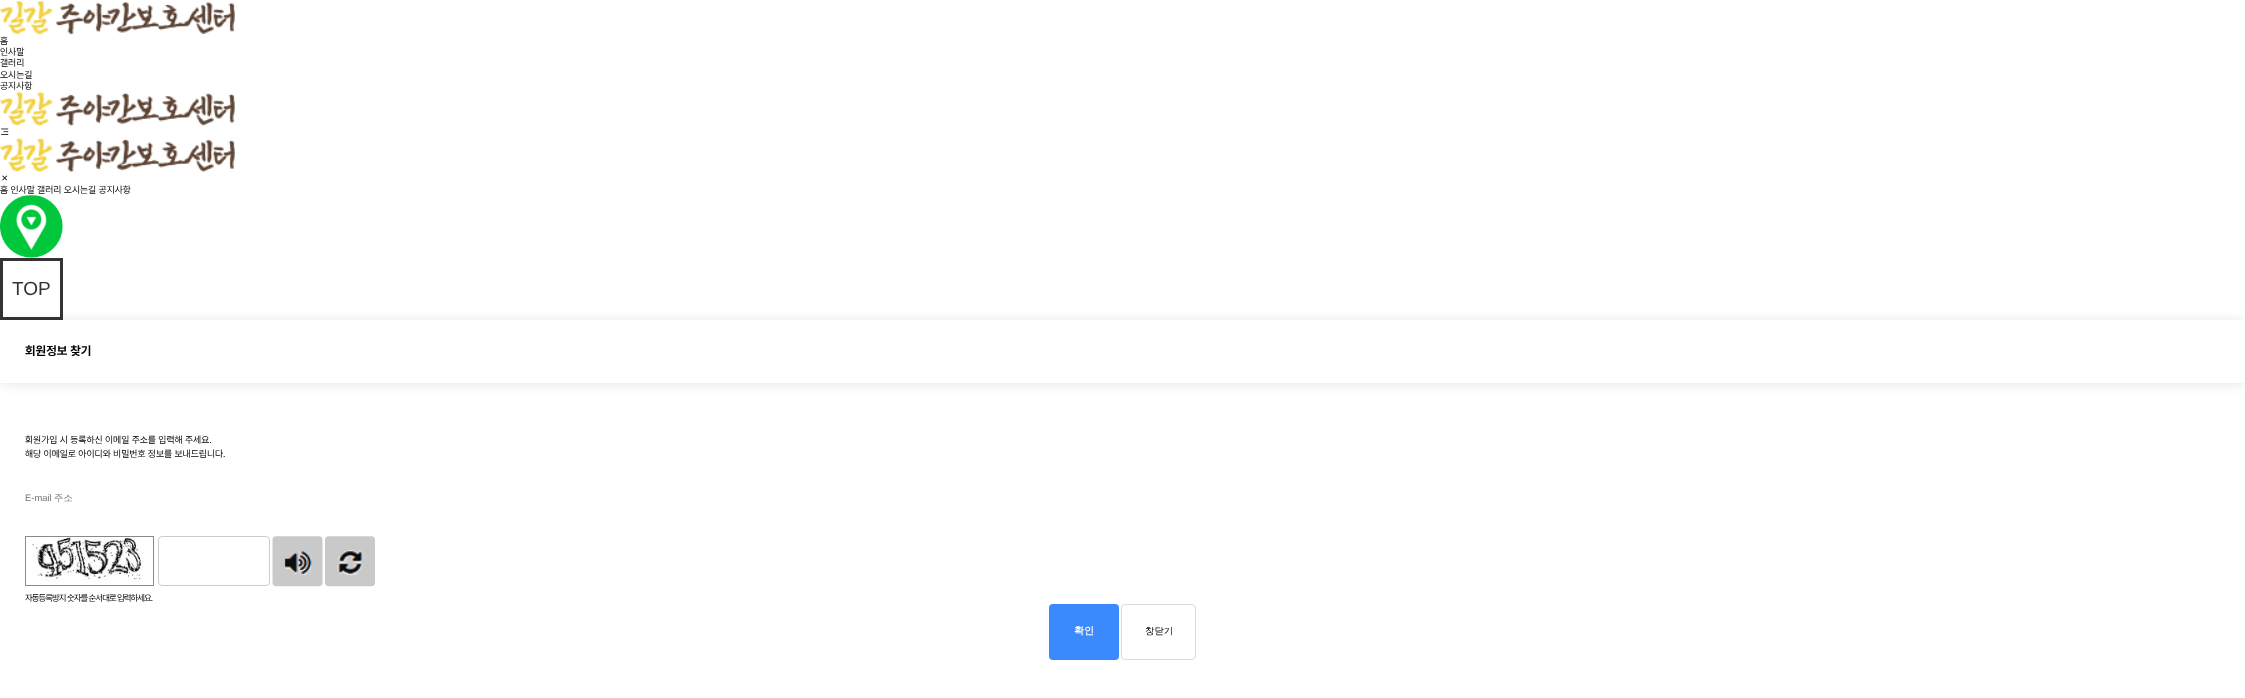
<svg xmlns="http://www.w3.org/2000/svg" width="2245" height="698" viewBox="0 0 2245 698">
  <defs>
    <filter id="blur1" x="-50%" y="-200%" width="200%" height="500%"><feGaussianBlur stdDeviation="6"/></filter>
  </defs>
  <rect width="100%" height="100%" fill="#ffffff"/>
  <image x="0" y="0" width="235" height="35" href="img1.png"/>
  <text x="0" y="44" font-family="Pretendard" font-size="9.4" fill="#000000">홈</text>
  <text x="0" y="55" font-family="Pretendard" font-size="9.4" fill="#000000">인사말</text>
  <text x="0" y="66" font-family="Pretendard" font-size="9.4" fill="#000000">갤러리</text>
  <text x="0" y="78" font-family="Pretendard" font-size="9.4" fill="#000000">오시는길</text>
  <text x="0" y="89" font-family="Pretendard" font-size="9.4" fill="#000000">공지사항</text>
  <image x="0" y="91" width="235" height="36" href="img2.png"/>
  <image x="1" y="128" width="8" height="7" href="img3.png"/>
  <image x="0" y="137" width="235" height="36" href="img4.png"/>
  <image x="2" y="175" width="6" height="6" href="img5.png"/>
  <text x="0" y="193" font-family="Pretendard" font-size="9.4" fill="#000000">홈 인사말 갤러리 오시는길 공지사항</text>
  <image x="0" y="195" width="63" height="63" href="img6.png"/>
  <rect x="1.5" y="259.5" width="60" height="59" fill="none" stroke="#333333" stroke-width="3"/>
  <text x="12" y="295" font-family="Liberation Sans" font-size="19" fill="#333333">TOP</text>
  <rect x="0" y="321" width="2245" height="63" fill="#000000" fill-opacity="0.1" filter="url(#blur1)"/>
  <rect x="0" y="320" width="2245" height="63" fill="#ffffff"/>
  <text x="25" y="355" font-family="Pretendard" font-size="12.25" font-weight="bold" fill="#000000">회원정보 찾기</text>
  <text x="25" y="443" font-family="Pretendard" font-size="9.4" fill="#000000">회원가입 시 등록하신 이메일 주소를 입력해 주세요.</text>
  <text x="25" y="457" font-family="Pretendard" font-size="9.4" fill="#000000">해당 이메일로 아이디와 비밀번호 정보를 보내드립니다.</text>
  <text x="25" y="501" font-family="Liberation Sans" font-size="9.4" fill="#757575">E-mail</text>
  <text x="54" y="501" font-family="WenQuanYi Zen Hei" font-size="9.4" font-weight="500" fill="#757575">주소</text>
  <rect x="25.5" y="536.5" width="128" height="49" fill="none" stroke="#898989"/>
  <rect x="158.5" y="536.5" width="111" height="49" rx="3.5" fill="none" stroke="#cccccc"/>
  <image x="272" y="536" width="51" height="51" href="img7.png"/>
  <image x="325" y="536" width="50" height="51" href="img8.png"/>
  <image x="32" y="537" width="111" height="45" href="img9.png"/>
  <text x="25" y="601" font-family="Pretendard" font-size="8.9" letter-spacing="-0.9" fill="#000000">자동등록방지 숫자를 순서대로 입력하세요.</text>
  <rect x="1049" y="604" width="70" height="56" rx="4" fill="#3a8afd"/>
  <text x="1074" y="634" font-family="WenQuanYi Zen Hei" font-size="10" font-weight="bold" fill="#ffffff">확인</text>
  <rect x="1121.5" y="604.5" width="74" height="55" rx="3.5" fill="none" stroke="#dcdcdc"/>
  <text x="1145" y="634" font-family="WenQuanYi Zen Hei" font-size="9.4" font-weight="500" fill="#000000">창닫기</text>
</svg>
